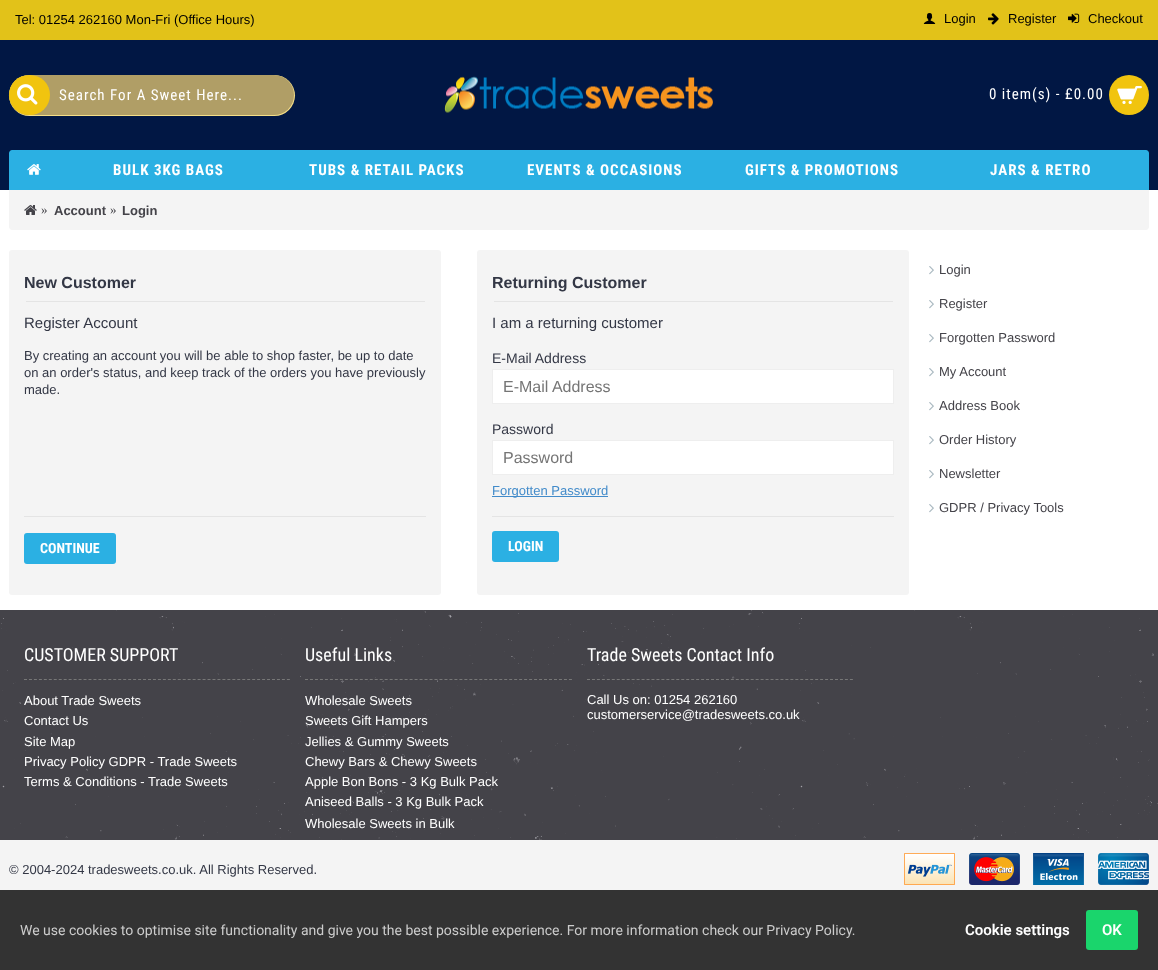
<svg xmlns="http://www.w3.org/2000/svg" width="1158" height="970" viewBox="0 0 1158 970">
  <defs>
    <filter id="blur1" x="-50%" y="-200%" width="200%" height="500%"><feGaussianBlur stdDeviation="0.5"/></filter>
  </defs>
  <rect width="100%" height="100%" fill="#011744"/>
  <rect x="0" y="0" width="1158" height="40" fill="#e2c219"/>
  <text x="15" y="24" font-family="Liberation Sans" font-size="13" fill="#000000">Tel: 01254 262160 Mon-Fri (Office Hours)</text>
  <image x="923" y="13" width="13" height="11" href="img1.png"/>
  <text x="944" y="23" font-family="Liberation Sans" font-size="13" fill="#000000">Login</text>
  <image x="988" y="13" width="11" height="12" href="img2.png"/>
  <text x="1008" y="23" font-family="Liberation Sans" font-size="13" fill="#000000">Register</text>
  <image x="1068" y="13" width="12" height="10" href="img3.png"/>
  <text x="1088" y="23" font-family="Liberation Sans" font-size="13" fill="#000000">Checkout</text>
  <rect x="9" y="75" width="286" height="41" rx="20.5" fill="#f6df87" filter="url(#blur1)"/>
  <rect x="9" y="75" width="285" height="40" rx="20" fill="#b09e66"/>
  <rect x="9" y="75" width="41" height="40" rx="20" fill="#f1c40f"/>
  <image x="17" y="84" width="21" height="21" href="img4.png"/>
  <text x="59" y="100" font-family="Roboto Condensed" font-size="15" letter-spacing="1" fill="#ffffff">Search For A Sweet Here...</text>
  <image x="444" y="76" width="269" height="37" href="img5.png"/>
  <text x="989" y="99" font-family="Roboto Condensed" font-size="15" letter-spacing="1" fill="#ffffff">0 item(s) - £0.00</text>
  <circle cx="1129" cy="95" r="20" fill="#f1c40f"/>
  <image x="1117" y="86" width="25" height="18" href="img6.png"/>
  <path d="M12 150H1146C1147.5 150 1149 151.5 1149 153V190H9V153C9 151.5 10.5 150 12 150Z" fill="#2bb0e3"/>
  <image x="27" y="164" width="14" height="11" href="img7.png"/>
  <text x="113" y="175" font-family="Roboto Condensed" font-size="15" font-weight="bold" letter-spacing="1" fill="#ffffff">BULK 3KG BAGS</text>
  <text x="309" y="175" font-family="Roboto Condensed" font-size="15" font-weight="bold" letter-spacing="1" fill="#ffffff">TUBS &amp; RETAIL PACKS</text>
  <text x="527" y="175" font-family="Roboto Condensed" font-size="15" font-weight="bold" letter-spacing="1" fill="#ffffff">EVENTS &amp; OCCASIONS</text>
  <text x="745" y="175" font-family="Roboto Condensed" font-size="15" font-weight="bold" letter-spacing="1" fill="#ffffff">GIFTS &amp; PROMOTIONS</text>
  <text x="990" y="175" font-family="Roboto Condensed" font-size="15" font-weight="bold" letter-spacing="1" fill="#ffffff">JARS &amp; RETRO</text>
  <rect x="0" y="190" width="1158" height="420" fill="#ffffff"/>
  <path d="M9 190H1149V227C1149 228.5 1147.5 230 1146 230H12C10.5 230 9 228.5 9 227Z" fill="#f4f4f4"/>
  <image x="24" y="205" width="13" height="10" href="img8.png"/>
  <text x="41" y="214" font-family="Liberation Serif" font-size="13" fill="#444349">»</text>
  <text x="54" y="215" font-family="Liberation Sans" font-size="13" font-weight="bold" fill="#444349">Account</text>
  <text x="110" y="214" font-family="Liberation Serif" font-size="13" fill="#444349">»</text>
  <text x="122" y="215" font-family="Liberation Sans" font-size="13" font-weight="bold" fill="#444349">Login</text>
  <rect x="9" y="250" width="432" height="345" rx="3" fill="#f4f4f4"/>
  <rect x="26" y="301" width="399" height="1" fill="#e4e4e4"/>
  <text x="24" y="288" font-family="Liberation Sans" font-size="16" font-weight="bold" fill="#333745">New Customer</text>
  <text x="24" y="328" font-family="Liberation Sans" font-size="15" fill="#333745">Register Account</text>
  <text x="24" y="360" font-family="Liberation Sans" font-size="13" fill="#333745">By creating an account you will be able to shop faster, be up to date</text>
  <text x="24" y="377" font-family="Liberation Sans" font-size="13" fill="#333745">on an order's status, and keep track of the orders you have previously</text>
  <text x="24" y="394" font-family="Liberation Sans" font-size="13" fill="#333745">made.</text>
  <rect x="24" y="516" width="402" height="1" fill="#e4e4e4"/>
  <rect x="24" y="533" width="92" height="31" rx="3" fill="#2bb0e3"/>
  <text x="40" y="553" font-family="Roboto Condensed" font-size="14" font-weight="bold" fill="#ffffff">CONTINUE</text>
  <rect x="477" y="250" width="432" height="345" rx="3" fill="#f4f4f4"/>
  <rect x="494" y="301" width="399" height="1" fill="#e4e4e4"/>
  <text x="492" y="288" font-family="Liberation Sans" font-size="16" font-weight="bold" fill="#333745">Returning Customer</text>
  <text x="492" y="328" font-family="Liberation Sans" font-size="15" fill="#333745">I am a returning customer</text>
  <text x="492" y="363" font-family="Liberation Sans" font-size="14" fill="#333745">E-Mail Address</text>
  <rect x="492.5" y="369.5" width="401" height="34" fill="#ffffff" stroke="#eeeeee"/>
  <text x="503" y="392" font-family="Liberation Sans" font-size="16" fill="#757575">E-Mail Address</text>
  <text x="492" y="434" font-family="Liberation Sans" font-size="14" fill="#333745">Password</text>
  <rect x="492.5" y="440.5" width="401" height="34" fill="#ffffff" stroke="#eeeeee"/>
  <text x="503" y="463" font-family="Liberation Sans" font-size="16" fill="#757575">Password</text>
  <rect x="492" y="496" width="116" height="1" fill="#428bca"/>
  <text x="492" y="495" font-family="Liberation Sans" font-size="13" fill="#428bca">Forgotten Password</text>
  <rect x="492" y="516" width="402" height="1" fill="#e4e4e4"/>
  <rect x="492" y="531" width="67" height="31" rx="3" fill="#2bb0e3"/>
  <text x="508" y="551" font-family="Roboto Condensed" font-size="14" font-weight="bold" fill="#ffffff">LOGIN</text>
  <image x="929" y="266" width="5" height="9" href="img9.png"/>
  <text x="939" y="274" font-family="Liberation Sans" font-size="13" fill="#444349">Login</text>
  <image x="929" y="300" width="5" height="9" href="img9.png"/>
  <text x="939" y="308" font-family="Liberation Sans" font-size="13" fill="#444349">Register</text>
  <image x="929" y="334" width="5" height="9" href="img9.png"/>
  <text x="939" y="342" font-family="Liberation Sans" font-size="13" fill="#444349">Forgotten Password</text>
  <image x="929" y="368" width="5" height="9" href="img9.png"/>
  <text x="939" y="376" font-family="Liberation Sans" font-size="13" fill="#444349">My Account</text>
  <image x="929" y="402" width="5" height="9" href="img9.png"/>
  <text x="939" y="410" font-family="Liberation Sans" font-size="13" fill="#444349">Address Book</text>
  <image x="929" y="436" width="5" height="9" href="img9.png"/>
  <text x="939" y="444" font-family="Liberation Sans" font-size="13" fill="#444349">Order History</text>
  <image x="929" y="470" width="5" height="9" href="img9.png"/>
  <text x="939" y="478" font-family="Liberation Sans" font-size="13" fill="#444349">Newsletter</text>
  <image x="929" y="504" width="5" height="9" href="img9.png"/>
  <text x="939" y="512" font-family="Liberation Sans" font-size="13" fill="#444349">GDPR / Privacy Tools</text>
  <rect x="0" y="610" width="1" height="230" fill="#444349"/>
  <image x="1" y="610" width="1157" height="230" href="img10.png"/>
  <path d="M24 679.5H290" fill="none" stroke="#777777" stroke-dasharray="3 1.96"/>
  <text x="24" y="661" font-family="Roboto Condensed" font-size="18" fill="#ffffff">CUSTOMER SUPPORT</text>
  <text x="24" y="705" font-family="Liberation Sans" font-size="13" fill="#ffffff">About Trade Sweets</text>
  <text x="24" y="725" font-family="Liberation Sans" font-size="13" fill="#ffffff">Contact Us</text>
  <text x="24" y="746" font-family="Liberation Sans" font-size="13" fill="#ffffff">Site Map</text>
  <text x="24" y="766" font-family="Liberation Sans" font-size="13" fill="#ffffff">Privacy Policy GDPR - Trade Sweets</text>
  <text x="24" y="786" font-family="Liberation Sans" font-size="13" fill="#ffffff">Terms &amp; Conditions - Trade Sweets</text>
  <path d="M305 679.5H572" fill="none" stroke="#777777" stroke-dasharray="3 1.98"/>
  <text x="305" y="661" font-family="Roboto Condensed" font-size="18" fill="#ffffff">Useful Links</text>
  <text x="305" y="705" font-family="Liberation Sans" font-size="13" fill="#ffffff">Wholesale Sweets</text>
  <text x="305" y="725" font-family="Liberation Sans" font-size="13" fill="#ffffff">Sweets Gift Hampers</text>
  <text x="305" y="746" font-family="Liberation Sans" font-size="13" fill="#ffffff">Jellies &amp; Gummy Sweets</text>
  <text x="305" y="766" font-family="Liberation Sans" font-size="13" fill="#ffffff">Chewy Bars &amp; Chewy Sweets</text>
  <text x="305" y="786" font-family="Liberation Sans" font-size="13" fill="#ffffff">Apple Bon Bons - 3 Kg Bulk Pack</text>
  <text x="305" y="806" font-family="Liberation Sans" font-size="13" fill="#ffffff">Aniseed Balls - 3 Kg Bulk Pack</text>
  <text x="305" y="828" font-family="Liberation Sans" font-size="13" fill="#ffffff">Wholesale Sweets in Bulk</text>
  <path d="M587 679.5H853" fill="none" stroke="#777777" stroke-dasharray="3 1.96"/>
  <text x="587" y="661" font-family="Roboto Condensed" font-size="18" fill="#ffffff">Trade Sweets Contact Info</text>
  <text x="587" y="704" font-family="Liberation Sans" font-size="13" fill="#ffffff">Call Us on: 01254 262160</text>
  <text x="587" y="719" font-family="Liberation Sans" font-size="13" fill="#ffffff">customerservice@tradesweets.co.uk</text>
  <rect x="0" y="840" width="1158" height="50" fill="#f4f4f4"/>
  <text x="9" y="874" font-family="Liberation Sans" font-size="13" fill="#333745">© 2004-2024 tradesweets.co.uk. All Rights Reserved.</text>
  <image x="904" y="853" width="51" height="32" href="img11.png"/>
  <image x="969" y="853" width="51" height="32" href="img12.png"/>
  <image x="1033" y="853" width="51" height="32" href="img13.png"/>
  <image x="1098" y="853" width="51" height="32" href="img14.png"/>
  <rect x="0" y="890" width="1158" height="80" fill="#333333"/>
  <text x="20" y="935" font-family="Roboto" font-size="14" fill="#cccccc">We use cookies to optimise site functionality and give you the best possible experience. For more information check our Privacy Policy.</text>
  <text x="965" y="935" font-family="Roboto" font-size="15" font-weight="600" fill="#ffffff">Cookie settings</text>
  <rect x="1086" y="910" width="52" height="40" rx="3" fill="#1ad56c"/>
  <text x="1102" y="935" font-family="Roboto" font-size="15" font-weight="600" fill="#ffffff">OK</text>
</svg>
